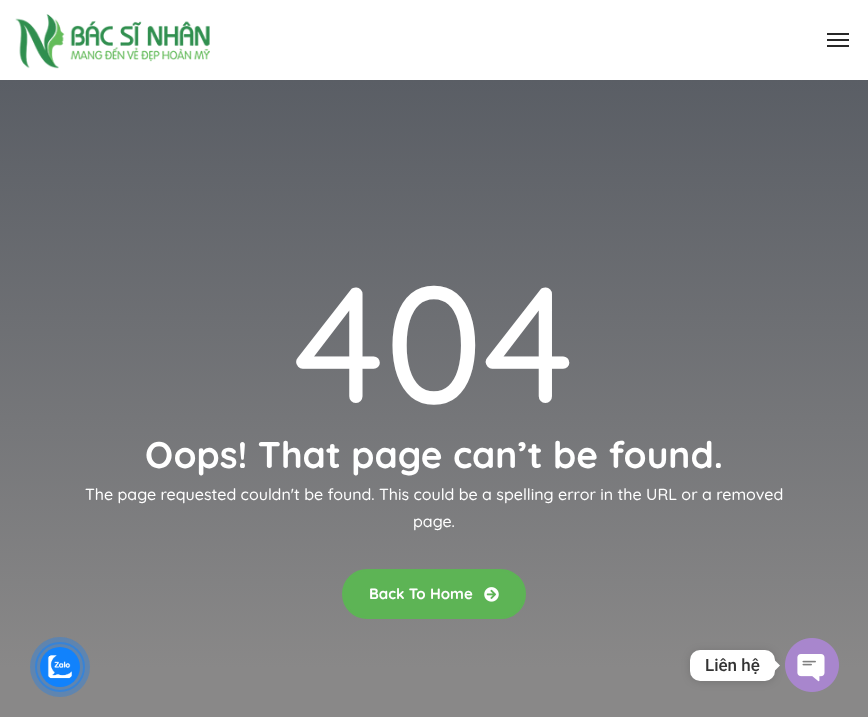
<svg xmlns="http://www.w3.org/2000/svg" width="868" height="717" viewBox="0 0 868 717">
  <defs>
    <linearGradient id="g1" gradientUnits="userSpaceOnUse" x1="434" y1="80" x2="434" y2="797"><stop offset="0" stop-color="#5a5e65"/><stop offset="0.82" stop-color="#898888"/></linearGradient>
    <filter id="blur1" x="-50%" y="-200%" width="200%" height="500%"><feGaussianBlur stdDeviation="4"/></filter>
  </defs>
  <rect width="100%" height="100%" fill="#ffffff"/>
  <image x="15" y="14" width="195" height="55" href="img1.png"/>
  <rect x="827" y="33" width="22" height="2" fill="#282828"/>
  <rect x="827" y="39" width="22" height="2" fill="#282828"/>
  <rect x="827" y="45" width="22" height="2" fill="#282828"/>
  <rect x="0" y="80" width="868" height="637" fill="url(#g1)"/>
  <text x="294" y="403" font-family="Quicksand" font-size="165" font-weight="500" fill="#ffffff">404</text>
  <text x="145" y="468" font-family="Quicksand" font-size="37" font-weight="bold" fill="#ffffff">Oops! That page can’t be found.</text>
  <text x="85" y="500" font-family="Quicksand" font-size="16" font-weight="500" fill="#ffffff">The page requested couldn't be found. This could be a spelling error in the URL or a removed</text>
  <text x="413" y="527" font-family="Quicksand" font-size="16" font-weight="500" fill="#ffffff">page.</text>
  <rect x="343" y="570" width="182" height="48" rx="24" fill="#5db455" stroke="#5db455" stroke-width="2"/>
  <text x="369" y="599" font-family="Quicksand" font-size="15" font-weight="bold" fill="#ffffff">Back To Home</text>
  <image x="484" y="587" width="15" height="15" href="img2.png"/>
  <circle cx="60" cy="667" r="24" fill="none" stroke="#4d85c2" stroke-width="2"/>
  <circle cx="60" cy="667" r="30" fill="#1182fc" fill-opacity="0.34"/>
  <circle cx="60" cy="667" r="20" fill="#1182fc"/>
  <image x="47" y="655" width="25" height="24" href="img3.png"/>
  <rect x="690" y="651" width="85" height="31" rx="10" fill="#000000" fill-opacity="0.15" filter="url(#blur1)"/>
  <rect x="690" y="650" width="85" height="31" rx="10" fill="#ffffff"/>
  <text x="705" y="671" font-family="Roboto" font-size="17" font-weight="500" fill="#333333">Liên hệ</text>
  <path d="M775 670.5V660.5L780 665.5Z" fill="#ffffff"/>
  <image x="785" y="638" width="54" height="54" href="img4.png"/>
</svg>
